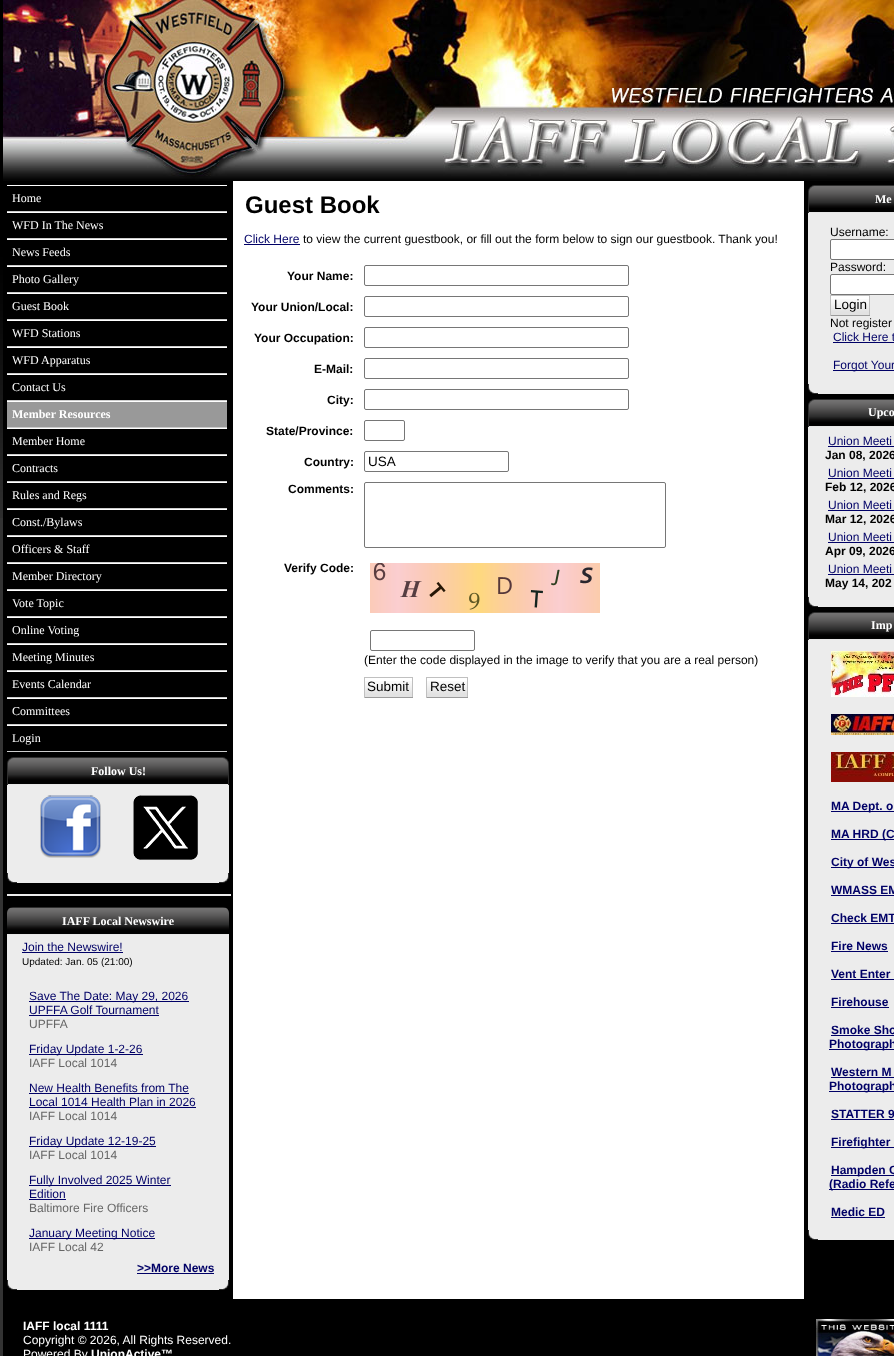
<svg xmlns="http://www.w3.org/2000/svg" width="894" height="1356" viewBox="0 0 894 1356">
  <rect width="100%" height="100%" fill="#333333"/>
  <image x="0" y="0" width="3" height="518" href="img1.png"/>
  <image x="3" y="0" width="891" height="181" href="img2.png"/>
  <rect x="233" y="181" width="571" height="1118" fill="#ffffff"/>
  <rect x="3" y="181" width="230" height="1118" fill="#000000"/>
  <rect x="7" y="185" width="220" height="1" fill="#ffffff"/>
  <rect x="7" y="211" width="220" height="1" fill="#cccccc"/>
  <text x="12" y="202" font-family="Liberation Serif" font-size="12" fill="#ffffff">Home</text>
  <rect x="7" y="212" width="220" height="1" fill="#ffffff"/>
  <rect x="7" y="238" width="220" height="1" fill="#cccccc"/>
  <text x="12" y="229" font-family="Liberation Serif" font-size="12" fill="#ffffff">WFD In The News</text>
  <rect x="7" y="239" width="220" height="1" fill="#ffffff"/>
  <rect x="7" y="265" width="220" height="1" fill="#cccccc"/>
  <text x="12" y="256" font-family="Liberation Serif" font-size="12" fill="#ffffff">News Feeds</text>
  <rect x="7" y="266" width="220" height="1" fill="#ffffff"/>
  <rect x="7" y="292" width="220" height="1" fill="#cccccc"/>
  <text x="12" y="283" font-family="Liberation Serif" font-size="12" fill="#ffffff">Photo Gallery</text>
  <rect x="7" y="293" width="220" height="1" fill="#ffffff"/>
  <rect x="7" y="319" width="220" height="1" fill="#cccccc"/>
  <text x="12" y="310" font-family="Liberation Serif" font-size="12" fill="#ffffff">Guest Book</text>
  <rect x="7" y="320" width="220" height="1" fill="#ffffff"/>
  <rect x="7" y="346" width="220" height="1" fill="#cccccc"/>
  <text x="12" y="337" font-family="Liberation Serif" font-size="12" fill="#ffffff">WFD Stations</text>
  <rect x="7" y="347" width="220" height="1" fill="#ffffff"/>
  <rect x="7" y="373" width="220" height="1" fill="#cccccc"/>
  <text x="12" y="364" font-family="Liberation Serif" font-size="12" fill="#ffffff">WFD Apparatus</text>
  <rect x="7" y="374" width="220" height="1" fill="#ffffff"/>
  <rect x="7" y="400" width="220" height="1" fill="#cccccc"/>
  <text x="12" y="391" font-family="Liberation Serif" font-size="12" fill="#ffffff">Contact Us</text>
  <rect x="7" y="402" width="220" height="25" fill="#999999"/>
  <rect x="7" y="401" width="220" height="1" fill="#ffffff"/>
  <rect x="7" y="427" width="220" height="1" fill="#cccccc"/>
  <text x="12" y="418" font-family="Liberation Serif" font-size="12" font-weight="bold" fill="#ffffff">Member Resources</text>
  <rect x="7" y="428" width="220" height="1" fill="#ffffff"/>
  <rect x="7" y="454" width="220" height="1" fill="#cccccc"/>
  <text x="12" y="445" font-family="Liberation Serif" font-size="12" fill="#ffffff">Member Home</text>
  <rect x="7" y="455" width="220" height="1" fill="#ffffff"/>
  <rect x="7" y="481" width="220" height="1" fill="#cccccc"/>
  <text x="12" y="472" font-family="Liberation Serif" font-size="12" fill="#ffffff">Contracts</text>
  <rect x="7" y="482" width="220" height="1" fill="#ffffff"/>
  <rect x="7" y="508" width="220" height="1" fill="#cccccc"/>
  <text x="12" y="499" font-family="Liberation Serif" font-size="12" fill="#ffffff">Rules and Regs</text>
  <rect x="7" y="509" width="220" height="1" fill="#ffffff"/>
  <rect x="7" y="535" width="220" height="1" fill="#cccccc"/>
  <text x="12" y="526" font-family="Liberation Serif" font-size="12" fill="#ffffff">Const./Bylaws</text>
  <rect x="7" y="536" width="220" height="1" fill="#ffffff"/>
  <rect x="7" y="562" width="220" height="1" fill="#cccccc"/>
  <text x="12" y="553" font-family="Liberation Serif" font-size="12" fill="#ffffff">Officers &amp; Staff</text>
  <rect x="7" y="563" width="220" height="1" fill="#ffffff"/>
  <rect x="7" y="589" width="220" height="1" fill="#cccccc"/>
  <text x="12" y="580" font-family="Liberation Serif" font-size="12" fill="#ffffff">Member Directory</text>
  <rect x="7" y="590" width="220" height="1" fill="#ffffff"/>
  <rect x="7" y="616" width="220" height="1" fill="#cccccc"/>
  <text x="12" y="607" font-family="Liberation Serif" font-size="12" fill="#ffffff">Vote Topic</text>
  <rect x="7" y="617" width="220" height="1" fill="#ffffff"/>
  <rect x="7" y="643" width="220" height="1" fill="#cccccc"/>
  <text x="12" y="634" font-family="Liberation Serif" font-size="12" fill="#ffffff">Online Voting</text>
  <rect x="7" y="644" width="220" height="1" fill="#ffffff"/>
  <rect x="7" y="670" width="220" height="1" fill="#cccccc"/>
  <text x="12" y="661" font-family="Liberation Serif" font-size="12" fill="#ffffff">Meeting Minutes</text>
  <rect x="7" y="671" width="220" height="1" fill="#ffffff"/>
  <rect x="7" y="697" width="220" height="1" fill="#cccccc"/>
  <text x="12" y="688" font-family="Liberation Serif" font-size="12" fill="#ffffff">Events Calendar</text>
  <rect x="7" y="698" width="220" height="1" fill="#ffffff"/>
  <rect x="7" y="724" width="220" height="1" fill="#cccccc"/>
  <text x="12" y="715" font-family="Liberation Serif" font-size="12" fill="#ffffff">Committees</text>
  <rect x="7" y="725" width="220" height="1" fill="#ffffff"/>
  <rect x="7" y="751" width="220" height="1" fill="#cccccc"/>
  <text x="12" y="742" font-family="Liberation Serif" font-size="12" fill="#ffffff">Login</text>
  <image x="7" y="757" width="10" height="28" href="img3.png"/>
  <image x="17" y="757" width="202" height="28" href="img4.png"/>
  <text x="91" y="775" font-family="Liberation Serif" font-size="12" font-weight="bold" fill="#ffffff">Follow Us!</text>
  <image x="219" y="757" width="10" height="28" href="img5.png"/>
  <rect x="7" y="785" width="222" height="88" fill="#ececec"/>
  <image x="40" y="795" width="61" height="63" href="img6.png"/>
  <image x="133" y="795" width="65" height="65" href="img7.png"/>
  <image x="7" y="873" width="10" height="10" href="img8.png"/>
  <rect x="17" y="873" width="202" height="10" fill="#ececec"/>
  <image x="219" y="873" width="10" height="10" href="img9.png"/>
  <rect x="7" y="894" width="224" height="2" fill="#ececec"/>
  <image x="7" y="907" width="222" height="28" href="img10.png"/>
  <text x="62" y="925" font-family="Liberation Serif" font-size="12" font-weight="bold" fill="#ffffff">IAFF Local Newswire</text>
  <rect x="7" y="935" width="222" height="345" fill="#ececec"/>
  <text x="22" y="951" font-family="Liberation Sans" font-size="12" fill="#000066">Join the Newswire!</text>
  <rect x="22" y="952" width="101" height="1" fill="#000066"/>
  <text x="22" y="965" font-family="Liberation Sans" font-size="10" fill="#000000">Updated: Jan. 05 (21:00)</text>
  <rect x="29" y="1001" width="160" height="1" fill="#000066"/>
  <text x="29" y="1000" font-family="Liberation Sans" font-size="12" fill="#000066">Save The Date: May 29, 2026</text>
  <text x="29" y="1014" font-family="Liberation Sans" font-size="12" fill="#000066">UPFFA Golf Tournament</text>
  <rect x="29" y="1015" width="130" height="1" fill="#000066"/>
  <text x="29" y="1028" font-family="Liberation Sans" font-size="12" fill="#666666">UPFFA</text>
  <rect x="29" y="1054" width="114" height="1" fill="#000066"/>
  <text x="29" y="1053" font-family="Liberation Sans" font-size="12" fill="#000066">Friday Update 1-2-26</text>
  <text x="29" y="1067" font-family="Liberation Sans" font-size="12" fill="#666666">IAFF Local 1014</text>
  <text x="29" y="1092" font-family="Liberation Sans" font-size="12" fill="#000066">New Health Benefits from The</text>
  <rect x="29" y="1093" width="160" height="1" fill="#000066"/>
  <text x="29" y="1106" font-family="Liberation Sans" font-size="12" fill="#000066">Local 1014 Health Plan in 2026</text>
  <rect x="29" y="1107" width="167" height="1" fill="#000066"/>
  <text x="29" y="1120" font-family="Liberation Sans" font-size="12" fill="#666666">IAFF Local 1014</text>
  <rect x="29" y="1146" width="127" height="1" fill="#000066"/>
  <text x="29" y="1145" font-family="Liberation Sans" font-size="12" fill="#000066">Friday Update 12-19-25</text>
  <text x="29" y="1159" font-family="Liberation Sans" font-size="12" fill="#666666">IAFF Local 1014</text>
  <rect x="29" y="1185" width="142" height="1" fill="#000066"/>
  <text x="29" y="1184" font-family="Liberation Sans" font-size="12" fill="#000066">Fully Involved 2025 Winter</text>
  <text x="29" y="1198" font-family="Liberation Sans" font-size="12" fill="#000066">Edition</text>
  <rect x="29" y="1199" width="37" height="1" fill="#000066"/>
  <text x="29" y="1212" font-family="Liberation Sans" font-size="12" fill="#666666">Baltimore Fire Officers</text>
  <rect x="29" y="1238" width="126" height="1" fill="#000066"/>
  <text x="29" y="1237" font-family="Liberation Sans" font-size="12" fill="#000066">January Meeting Notice</text>
  <text x="29" y="1251" font-family="Liberation Sans" font-size="12" fill="#666666">IAFF Local 42</text>
  <text x="137" y="1272" font-family="Liberation Sans" font-size="12" font-weight="bold" fill="#000066">&gt;&gt;More News</text>
  <rect x="137" y="1273" width="77" height="1" fill="#000066"/>
  <image x="7" y="1280" width="10" height="10" href="img8.png"/>
  <rect x="17" y="1280" width="202" height="10" fill="#ececec"/>
  <image x="219" y="1280" width="10" height="10" href="img9.png"/>
  <text x="245" y="213" font-family="Liberation Sans" font-size="24" font-weight="bold" fill="#000000">Guest Book</text>
  <text x="244" y="243" font-family="Liberation Sans" font-size="12" fill="#000066">Click Here</text>
  <rect x="244" y="244" width="56" height="1" fill="#000066"/>
  <text x="303" y="243" font-family="Liberation Sans" font-size="12" fill="#000000">to view the current guestbook, or fill out the form below to sign our guestbook. Thank you!</text>
  <text x="287" y="280" font-family="Liberation Sans" font-size="12" font-weight="bold" fill="#000000">Your Name:</text>
  <rect x="364.5" y="265.5" width="264" height="20" rx="1.5" fill="none" stroke="#767676"/>
  <text x="251" y="311" font-family="Liberation Sans" font-size="12" font-weight="bold" fill="#000000">Your Union/Local:</text>
  <rect x="364.5" y="296.5" width="264" height="20" rx="1.5" fill="none" stroke="#767676"/>
  <text x="254" y="342" font-family="Liberation Sans" font-size="12" font-weight="bold" fill="#000000">Your Occupation:</text>
  <rect x="364.5" y="327.5" width="264" height="20" rx="1.5" fill="none" stroke="#767676"/>
  <text x="314" y="373" font-family="Liberation Sans" font-size="12" font-weight="bold" fill="#000000">E-Mail:</text>
  <rect x="364.5" y="358.5" width="264" height="20" rx="1.5" fill="none" stroke="#767676"/>
  <text x="327" y="404" font-family="Liberation Sans" font-size="12" font-weight="bold" fill="#000000">City:</text>
  <rect x="364.5" y="389.5" width="264" height="20" rx="1.5" fill="none" stroke="#767676"/>
  <text x="266" y="435" font-family="Liberation Sans" font-size="12" font-weight="bold" fill="#000000">State/Province:</text>
  <rect x="364.5" y="420.5" width="40" height="20" rx="1.5" fill="none" stroke="#767676"/>
  <text x="304" y="466" font-family="Liberation Sans" font-size="12" font-weight="bold" fill="#000000">Country:</text>
  <rect x="364.5" y="451.5" width="144" height="20" rx="1.5" fill="none" stroke="#767676"/>
  <text x="368" y="466" font-family="Liberation Sans" font-size="13.5" fill="#000000">USA</text>
  <text x="288" y="493" font-family="Liberation Sans" font-size="12" font-weight="bold" fill="#000000">Comments:</text>
  <rect x="364.5" y="482.5" width="301" height="65" rx="1.5" fill="none" stroke="#767676"/>
  <text x="284" y="572" font-family="Liberation Sans" font-size="12" font-weight="bold" fill="#000000">Verify Code:</text>
  <image x="370" y="563" width="230" height="50" href="img11.png"/>
  <rect x="370.5" y="630.5" width="104" height="20" rx="1.5" fill="none" stroke="#767676"/>
  <text x="364" y="664" font-family="Liberation Sans" font-size="12" fill="#000000">(Enter the code displayed in the image to verify that you are a real person)</text>
  <image x="365" y="681" width="47" height="16" href="img12.png"/>
  <rect x="364" y="677" width="49" height="1" fill="#c0c0c0"/>
  <rect x="412" y="677" width="1" height="21" fill="#c0c0c0"/>
  <rect x="364" y="697" width="49" height="1" fill="#9b9b9b"/>
  <rect x="364" y="677" width="1" height="21" fill="#c0c0c0"/>
  <text x="367" y="691" font-family="Liberation Sans" font-size="13.5" fill="#000000">Submit</text>
  <image x="427" y="681" width="40" height="16" href="img13.png"/>
  <rect x="426" y="677" width="42" height="1" fill="#c0c0c0"/>
  <rect x="467" y="677" width="1" height="21" fill="#c0c0c0"/>
  <rect x="426" y="697" width="42" height="1" fill="#9b9b9b"/>
  <rect x="426" y="677" width="1" height="21" fill="#c0c0c0"/>
  <text x="430" y="691" font-family="Liberation Sans" font-size="13.5" fill="#000000">Reset</text>
  <rect x="804" y="181" width="90" height="1118" fill="#000000"/>
  <image x="808" y="185" width="10" height="28" href="img3.png"/>
  <image x="818" y="185" width="76" height="28" href="img14.png"/>
  <text x="875" y="203" font-family="Liberation Serif" font-size="12" font-weight="bold" fill="#ffffff">Me</text>
  <rect x="808" y="213" width="86" height="171" fill="#ececec"/>
  <text x="830" y="236" font-family="Liberation Sans" font-size="12" fill="#000000">Username:</text>
  <rect x="830.5" y="239.5" width="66" height="20" rx="1.5" fill="#ffffff" stroke="#767676"/>
  <text x="830" y="271" font-family="Liberation Sans" font-size="12" fill="#000000">Password:</text>
  <rect x="830.5" y="274.5" width="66" height="20" rx="1.5" fill="#ffffff" stroke="#767676"/>
  <rect x="831" y="296" width="38" height="3" fill="#ffffff"/>
  <image x="831" y="299" width="38" height="16" href="img15.png"/>
  <rect x="830" y="295" width="40" height="1" fill="#c0c0c0"/>
  <rect x="869" y="295" width="1" height="21" fill="#c0c0c0"/>
  <rect x="830" y="315" width="40" height="1" fill="#9b9b9b"/>
  <rect x="830" y="295" width="1" height="21" fill="#c0c0c0"/>
  <text x="834" y="309" font-family="Liberation Sans" font-size="13.5" fill="#000000">Login</text>
  <text x="830" y="327" font-family="Liberation Sans" font-size="12" fill="#000000">Not register</text>
  <text x="833" y="341" font-family="Liberation Sans" font-size="12" fill="#000066">Click Here t</text>
  <rect x="833" y="342" width="61" height="1" fill="#000066"/>
  <rect x="833" y="370" width="61" height="1" fill="#000066"/>
  <text x="833" y="369" font-family="Liberation Sans" font-size="12" fill="#000066">Forgot Your</text>
  <image x="808" y="384" width="10" height="10" href="img8.png"/>
  <rect x="818" y="384" width="76" height="10" fill="#ececec"/>
  <image x="808" y="399" width="10" height="28" href="img3.png"/>
  <image x="818" y="399" width="76" height="28" href="img14.png"/>
  <text x="868" y="416" font-family="Liberation Serif" font-size="12" font-weight="bold" fill="#ffffff">Upco</text>
  <rect x="808" y="427" width="86" height="170" fill="#ececec"/>
  <text x="828" y="445" font-family="Liberation Sans" font-size="12" fill="#000066">Union Meeti</text>
  <rect x="828" y="446" width="66" height="1" fill="#000066"/>
  <text x="825" y="459" font-family="Liberation Sans" font-size="12" font-weight="bold" fill="#000000">Jan 08, 2026</text>
  <text x="828" y="477" font-family="Liberation Sans" font-size="12" fill="#000066">Union Meeti</text>
  <rect x="828" y="478" width="66" height="1" fill="#000066"/>
  <text x="825" y="491" font-family="Liberation Sans" font-size="12" font-weight="bold" fill="#000000">Feb 12, 2026</text>
  <text x="828" y="509" font-family="Liberation Sans" font-size="12" fill="#000066">Union Meeti</text>
  <rect x="828" y="510" width="66" height="1" fill="#000066"/>
  <text x="825" y="523" font-family="Liberation Sans" font-size="12" font-weight="bold" fill="#000000">Mar 12, 2026</text>
  <text x="828" y="541" font-family="Liberation Sans" font-size="12" fill="#000066">Union Meeti</text>
  <rect x="828" y="542" width="66" height="1" fill="#000066"/>
  <text x="825" y="555" font-family="Liberation Sans" font-size="12" font-weight="bold" fill="#000000">Apr 09, 2026</text>
  <text x="828" y="573" font-family="Liberation Sans" font-size="12" fill="#000066">Union Meeti</text>
  <rect x="828" y="574" width="66" height="1" fill="#000066"/>
  <text x="825" y="587" font-family="Liberation Sans" font-size="12" font-weight="bold" fill="#000000">May 14, 202</text>
  <image x="808" y="597" width="10" height="10" href="img8.png"/>
  <rect x="818" y="597" width="76" height="10" fill="#ececec"/>
  <image x="808" y="612" width="10" height="28" href="img3.png"/>
  <image x="818" y="612" width="76" height="28" href="img14.png"/>
  <text x="871" y="629" font-family="Liberation Serif" font-size="12" font-weight="bold" fill="#ffffff">Imp</text>
  <rect x="808" y="640" width="86" height="590" fill="#ececec"/>
  <image x="831" y="651" width="63" height="46" href="img16.png"/>
  <image x="831" y="714" width="63" height="21" href="img17.png"/>
  <image x="831" y="752" width="63" height="30" href="img18.png"/>
  <rect x="831" y="811" width="63" height="1" fill="#000066"/>
  <text x="831" y="810" font-family="Liberation Sans" font-size="12" font-weight="bold" fill="#000066">MA Dept. o</text>
  <rect x="831" y="839" width="63" height="1" fill="#000066"/>
  <text x="831" y="838" font-family="Liberation Sans" font-size="12" font-weight="bold" fill="#000066">MA HRD (C</text>
  <rect x="831" y="867" width="63" height="1" fill="#000066"/>
  <text x="831" y="866" font-family="Liberation Sans" font-size="12" font-weight="bold" fill="#000066">City of Wes</text>
  <text x="831" y="894" font-family="Liberation Sans" font-size="12" font-weight="bold" fill="#000066">WMASS EM</text>
  <rect x="831" y="895" width="63" height="1" fill="#000066"/>
  <text x="831" y="922" font-family="Liberation Sans" font-size="12" font-weight="bold" fill="#000066">Check EMT</text>
  <rect x="831" y="923" width="63" height="1" fill="#000066"/>
  <text x="831" y="950" font-family="Liberation Sans" font-size="12" font-weight="bold" fill="#000066">Fire News</text>
  <rect x="831" y="951" width="57" height="1" fill="#000066"/>
  <text x="831" y="978" font-family="Liberation Sans" font-size="12" font-weight="bold" fill="#000066">Vent Enter</text>
  <rect x="831" y="979" width="63" height="1" fill="#000066"/>
  <text x="831" y="1006" font-family="Liberation Sans" font-size="12" font-weight="bold" fill="#000066">Firehouse</text>
  <rect x="831" y="1007" width="58" height="1" fill="#000066"/>
  <text x="831" y="1034" font-family="Liberation Sans" font-size="12" font-weight="bold" fill="#000066">Smoke Sho</text>
  <rect x="831" y="1035" width="63" height="1" fill="#000066"/>
  <rect x="829" y="1049" width="65" height="1" fill="#000066"/>
  <text x="829" y="1048" font-family="Liberation Sans" font-size="12" font-weight="bold" fill="#000066">Photograph</text>
  <text x="831" y="1076" font-family="Liberation Sans" font-size="12" font-weight="bold" fill="#000066">Western M</text>
  <rect x="831" y="1077" width="63" height="1" fill="#000066"/>
  <rect x="829" y="1091" width="65" height="1" fill="#000066"/>
  <text x="829" y="1090" font-family="Liberation Sans" font-size="12" font-weight="bold" fill="#000066">Photograph</text>
  <text x="831" y="1118" font-family="Liberation Sans" font-size="12" font-weight="bold" fill="#000066">STATTER 9</text>
  <rect x="831" y="1119" width="63" height="1" fill="#000066"/>
  <rect x="831" y="1147" width="63" height="1" fill="#000066"/>
  <text x="831" y="1146" font-family="Liberation Sans" font-size="12" font-weight="bold" fill="#000066">Firefighter</text>
  <rect x="831" y="1175" width="63" height="1" fill="#000066"/>
  <text x="831" y="1174" font-family="Liberation Sans" font-size="12" font-weight="bold" fill="#000066">Hampden C</text>
  <rect x="829" y="1189" width="65" height="1" fill="#000066"/>
  <text x="829" y="1188" font-family="Liberation Sans" font-size="12" font-weight="bold" fill="#000066">(Radio Refe</text>
  <text x="831" y="1216" font-family="Liberation Sans" font-size="12" font-weight="bold" fill="#000066">Medic ED</text>
  <rect x="831" y="1217" width="54" height="1" fill="#000066"/>
  <image x="808" y="1230" width="10" height="10" href="img8.png"/>
  <rect x="818" y="1230" width="76" height="10" fill="#ececec"/>
  <rect x="3" y="1299" width="891" height="57" fill="#000000"/>
  <text x="23" y="1330" font-family="Liberation Sans" font-size="12" font-weight="bold" fill="#ffffff">IAFF local 1111</text>
  <text x="23" y="1344" font-family="Liberation Sans" font-size="12" fill="#ffffff">Copyright © 2026, All Rights Reserved.</text>
  <text x="23" y="1358" font-family="Liberation Sans" font-size="12" fill="#ffffff">Powered By</text>
  <text x="91" y="1358" font-family="Liberation Sans" font-size="12" font-weight="bold" fill="#ffffff">UnionActive™</text>
  <image x="816" y="1319" width="78" height="37" href="img19.png"/>
</svg>
